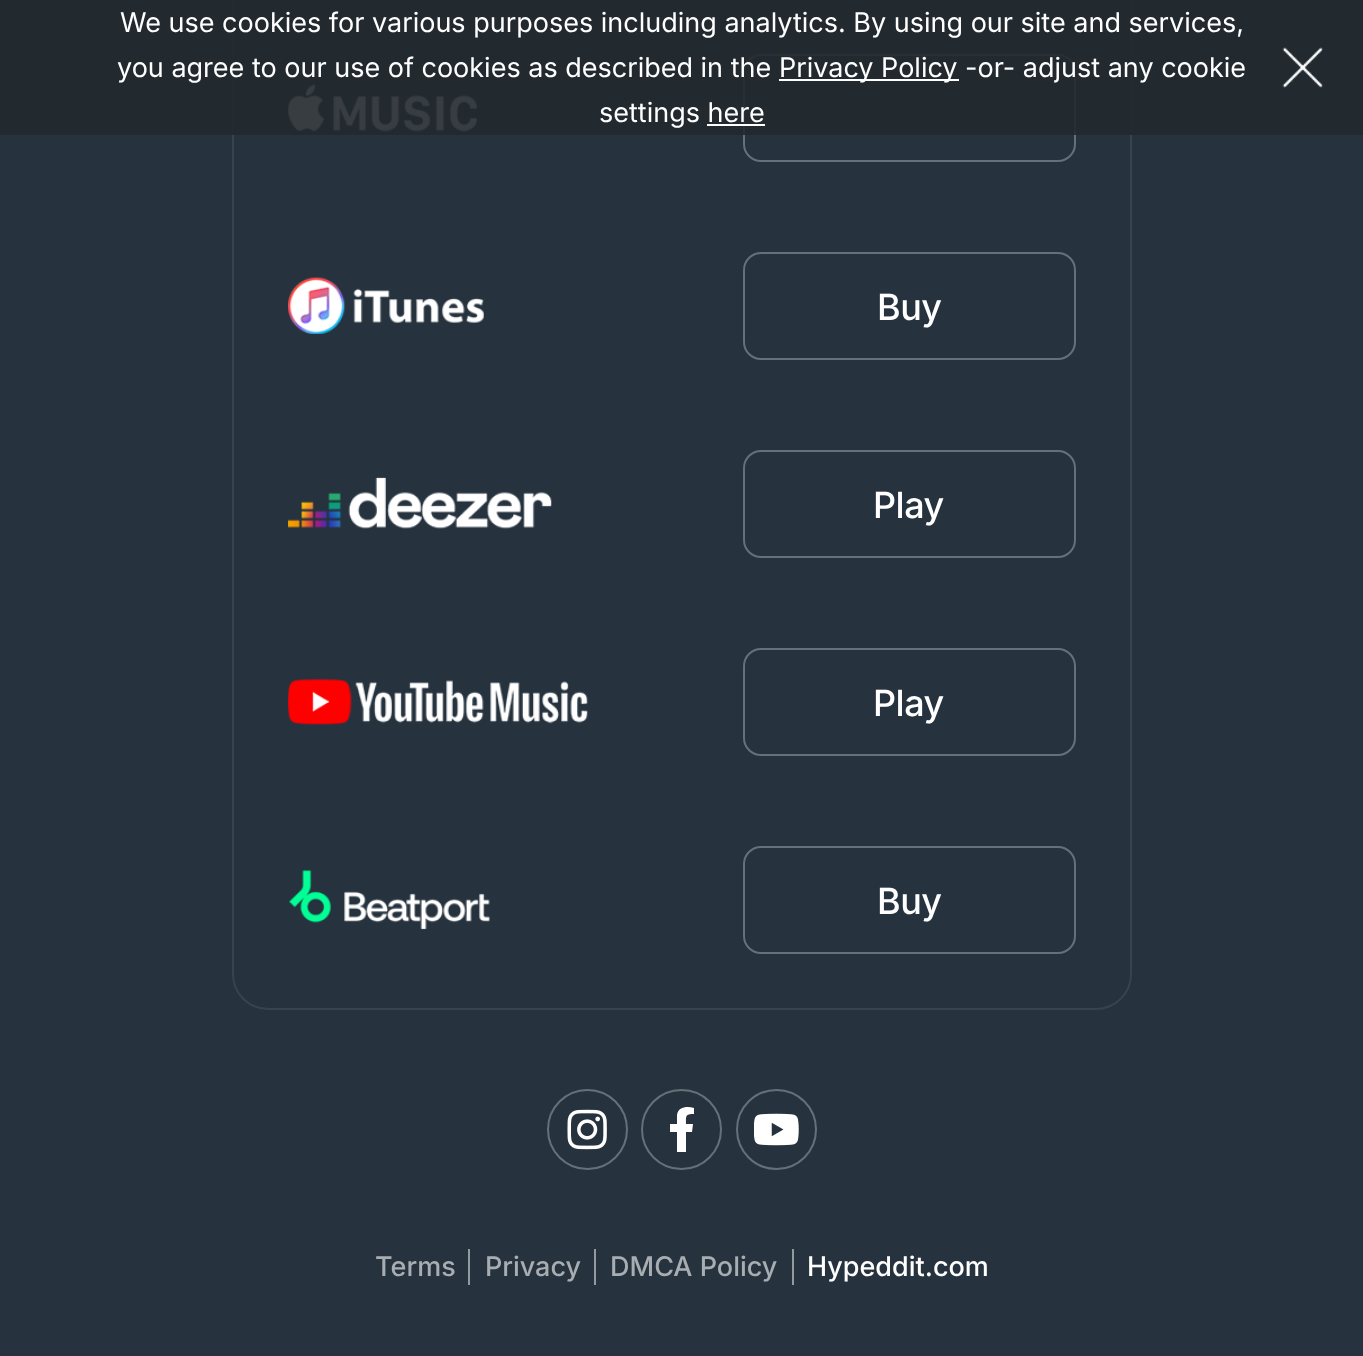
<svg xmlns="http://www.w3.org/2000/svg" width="1363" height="1356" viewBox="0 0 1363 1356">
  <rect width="100%" height="100%" fill="#26333f"/>
  <rect x="233" y="-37" width="898" height="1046" rx="35" fill="none" stroke="#37434e" stroke-width="2"/>
  <image x="288" y="84" width="189" height="48" href="img2.png"/>
  <rect x="744" y="55" width="331" height="106" rx="17" fill="none" stroke="#677079" stroke-width="2"/>
  <rect x="0" y="0" width="1363" height="135" fill="#22282e" fill-opacity="0.9"/>
  <text x="120" y="32" font-family="Inter" font-size="27" fill="#ffffff">We use cookies for various purposes including analytics. By using our site and services,</text>
  <text x="117" y="77" font-family="Inter" font-size="27" fill="#ffffff">you agree to our use of cookies as described in the</text>
  <rect x="779" y="79" width="180" height="2" fill="#ffffff"/>
  <text x="779" y="77" font-family="Inter" font-size="27" fill="#ffffff">Privacy Policy -or- adjust any cookie</text>
  <text x="599" y="122" font-family="Inter" font-size="27" fill="#ffffff">settings here</text>
  <rect x="707" y="124" width="58" height="2" fill="#ffffff"/>
  <image x="1282" y="47" width="41" height="41" href="img1.png"/>
  <image x="288" y="277" width="196" height="57" href="img3.png"/>
  <rect x="744" y="253" width="331" height="106" rx="17" fill="none" stroke="#677079" stroke-width="2"/>
  <text x="877" y="320" font-family="Inter" font-size="36" font-weight="500" letter-spacing="-0.5" fill="#ffffff">Buy</text>
  <image x="288" y="477" width="264" height="52" href="img4.png"/>
  <rect x="744" y="451" width="331" height="106" rx="17" fill="none" stroke="#677079" stroke-width="2"/>
  <text x="873" y="518" font-family="Inter" font-size="36" font-weight="500" letter-spacing="-0.5" fill="#ffffff">Play</text>
  <image x="288" y="679" width="300" height="46" href="img5.png"/>
  <rect x="744" y="649" width="331" height="106" rx="17" fill="none" stroke="#677079" stroke-width="2"/>
  <text x="873" y="716" font-family="Inter" font-size="36" font-weight="500" letter-spacing="-0.5" fill="#ffffff">Play</text>
  <image x="289" y="870" width="201" height="60" href="img6.png"/>
  <rect x="744" y="847" width="331" height="106" rx="17" fill="none" stroke="#677079" stroke-width="2"/>
  <text x="877" y="914" font-family="Inter" font-size="36" font-weight="500" letter-spacing="-0.5" fill="#ffffff">Buy</text>
  <circle cx="587.5" cy="1129.5" r="39.5" fill="none" stroke="#677078" stroke-width="2"/>
  <image x="567" y="1109" width="40" height="41" href="img7.png"/>
  <circle cx="681.5" cy="1129.5" r="39.5" fill="none" stroke="#677078" stroke-width="2"/>
  <path d="M692 1132L693 1124H686C686 1116 685 1114 694 1114V1108C687 1106 678 1107 677 1115V1124H670V1132H677V1152H686V1132Z" fill="#ffffff"/>
  <circle cx="776.5" cy="1129.5" r="39.5" fill="none" stroke="#677078" stroke-width="2"/>
  <image x="754" y="1113" width="45" height="33" href="img8.png"/>
  <rect x="468" y="1249" width="2" height="36" fill="#92999f"/>
  <text x="375" y="1276" font-family="Inter" font-size="27" font-weight="500" fill="#a8adb2">Terms</text>
  <rect x="594" y="1249" width="2" height="36" fill="#92999f"/>
  <text x="485" y="1276" font-family="Inter" font-size="27" font-weight="500" fill="#a8adb2">Privacy</text>
  <rect x="792" y="1249" width="2" height="36" fill="#92999f"/>
  <text x="610" y="1276" font-family="Inter" font-size="27" font-weight="500" fill="#a8adb2">DMCA Policy</text>
  <text x="807" y="1276" font-family="Inter" font-size="27" font-weight="500" fill="#ffffff">Hypeddit.com</text>
</svg>
